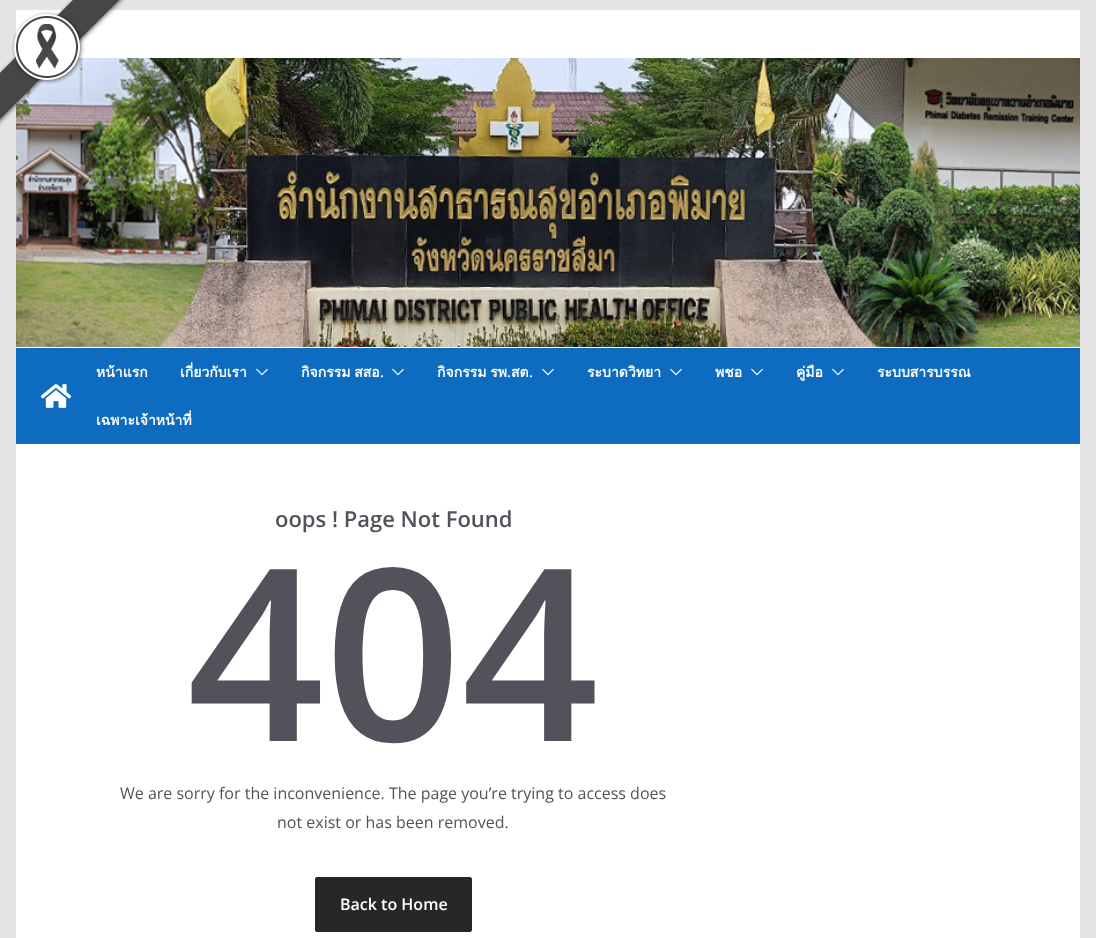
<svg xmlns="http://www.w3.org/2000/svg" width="1096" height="938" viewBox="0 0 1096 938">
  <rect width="100%" height="100%" fill="#e4e4e7"/>
  <rect x="16" y="10" width="1064" height="338" fill="#ffffff"/>
  <image x="16" y="58" width="1064" height="289" href="img2.png"/>
  <image x="0" y="0" width="126" height="126" href="img1.png"/>
  <rect x="16" y="348" width="1064" height="96" fill="#0d6cbf"/>
  <image x="40" y="384" width="32" height="24" href="img3.png"/>
  <text x="96" y="377" font-family="Loma" font-size="14" font-weight="bold" fill="#ffffff">หน้าแรก</text>
  <text x="180" y="377" font-family="Loma" font-size="14" font-weight="bold" fill="#ffffff">เกี่ยวกับเรา</text>
  <image x="256" y="368" width="12" height="8" href="img4.png"/>
  <text x="301" y="377" word-spacing="-1" font-family="Loma" font-size="14" font-weight="bold" fill="#ffffff">กิจกรรม สสอ</text>
  <text x="380" y="377" font-family="Open Sans" font-size="14" font-weight="600" fill="#ffffff">.</text>
  <image x="392" y="368" width="12" height="8" href="img4.png"/>
  <text x="437" y="377" word-spacing="-1" font-family="Loma" font-size="14" font-weight="bold" fill="#ffffff">กิจกรรม รพ</text>
  <text x="507" y="377" font-family="Open Sans" font-size="14" font-weight="600" fill="#ffffff">.</text>
  <text x="511" y="377" font-family="Loma" font-size="14" font-weight="bold" fill="#ffffff">สต</text>
  <text x="529" y="377" font-family="Open Sans" font-size="14" font-weight="600" fill="#ffffff">.</text>
  <image x="542" y="368" width="12" height="8" href="img4.png"/>
  <text x="587" y="377" font-family="Loma" font-size="14" font-weight="bold" fill="#ffffff">ระบาดวิทยา</text>
  <image x="670" y="368" width="12" height="8" href="img4.png"/>
  <text x="715" y="377" font-family="Loma" font-size="14" font-weight="bold" fill="#ffffff">พชอ</text>
  <image x="751" y="368" width="12" height="8" href="img4.png"/>
  <text x="796" y="377" font-family="Loma" font-size="14" font-weight="bold" fill="#ffffff">คู่มือ</text>
  <image x="832" y="368" width="12" height="8" href="img4.png"/>
  <text x="877" y="377" font-family="Loma" font-size="14" font-weight="bold" fill="#ffffff">ระบบสารบรรณ</text>
  <text x="96" y="425" font-family="Loma" font-size="14" font-weight="bold" fill="#ffffff">เฉพาะเจ้าหน้าที่</text>
  <rect x="16" y="444" width="1064" height="494" fill="#ffffff"/>
  <text x="275" y="527" font-family="Open Sans" font-size="22" font-weight="600" fill="#52525b">oops ! Page Not Found</text>
  <text x="187" y="741" font-family="Open Sans" font-size="240" font-weight="600" fill="#52525b">404</text>
  <text x="120" y="799" font-family="Open Sans" font-size="16" fill="#52525b">We are sorry for the inconvenience. The page you’re trying to access does</text>
  <text x="277" y="828" font-family="Open Sans" font-size="16" fill="#52525b">not exist or has been removed.</text>
  <rect x="315.5" y="877.5" width="156" height="54" rx="1.5" fill="#27272a" stroke="#27272a"/>
  <text x="340" y="910" font-family="Open Sans" font-size="16" font-weight="600" fill="#ffffff">Back to Home</text>
</svg>
